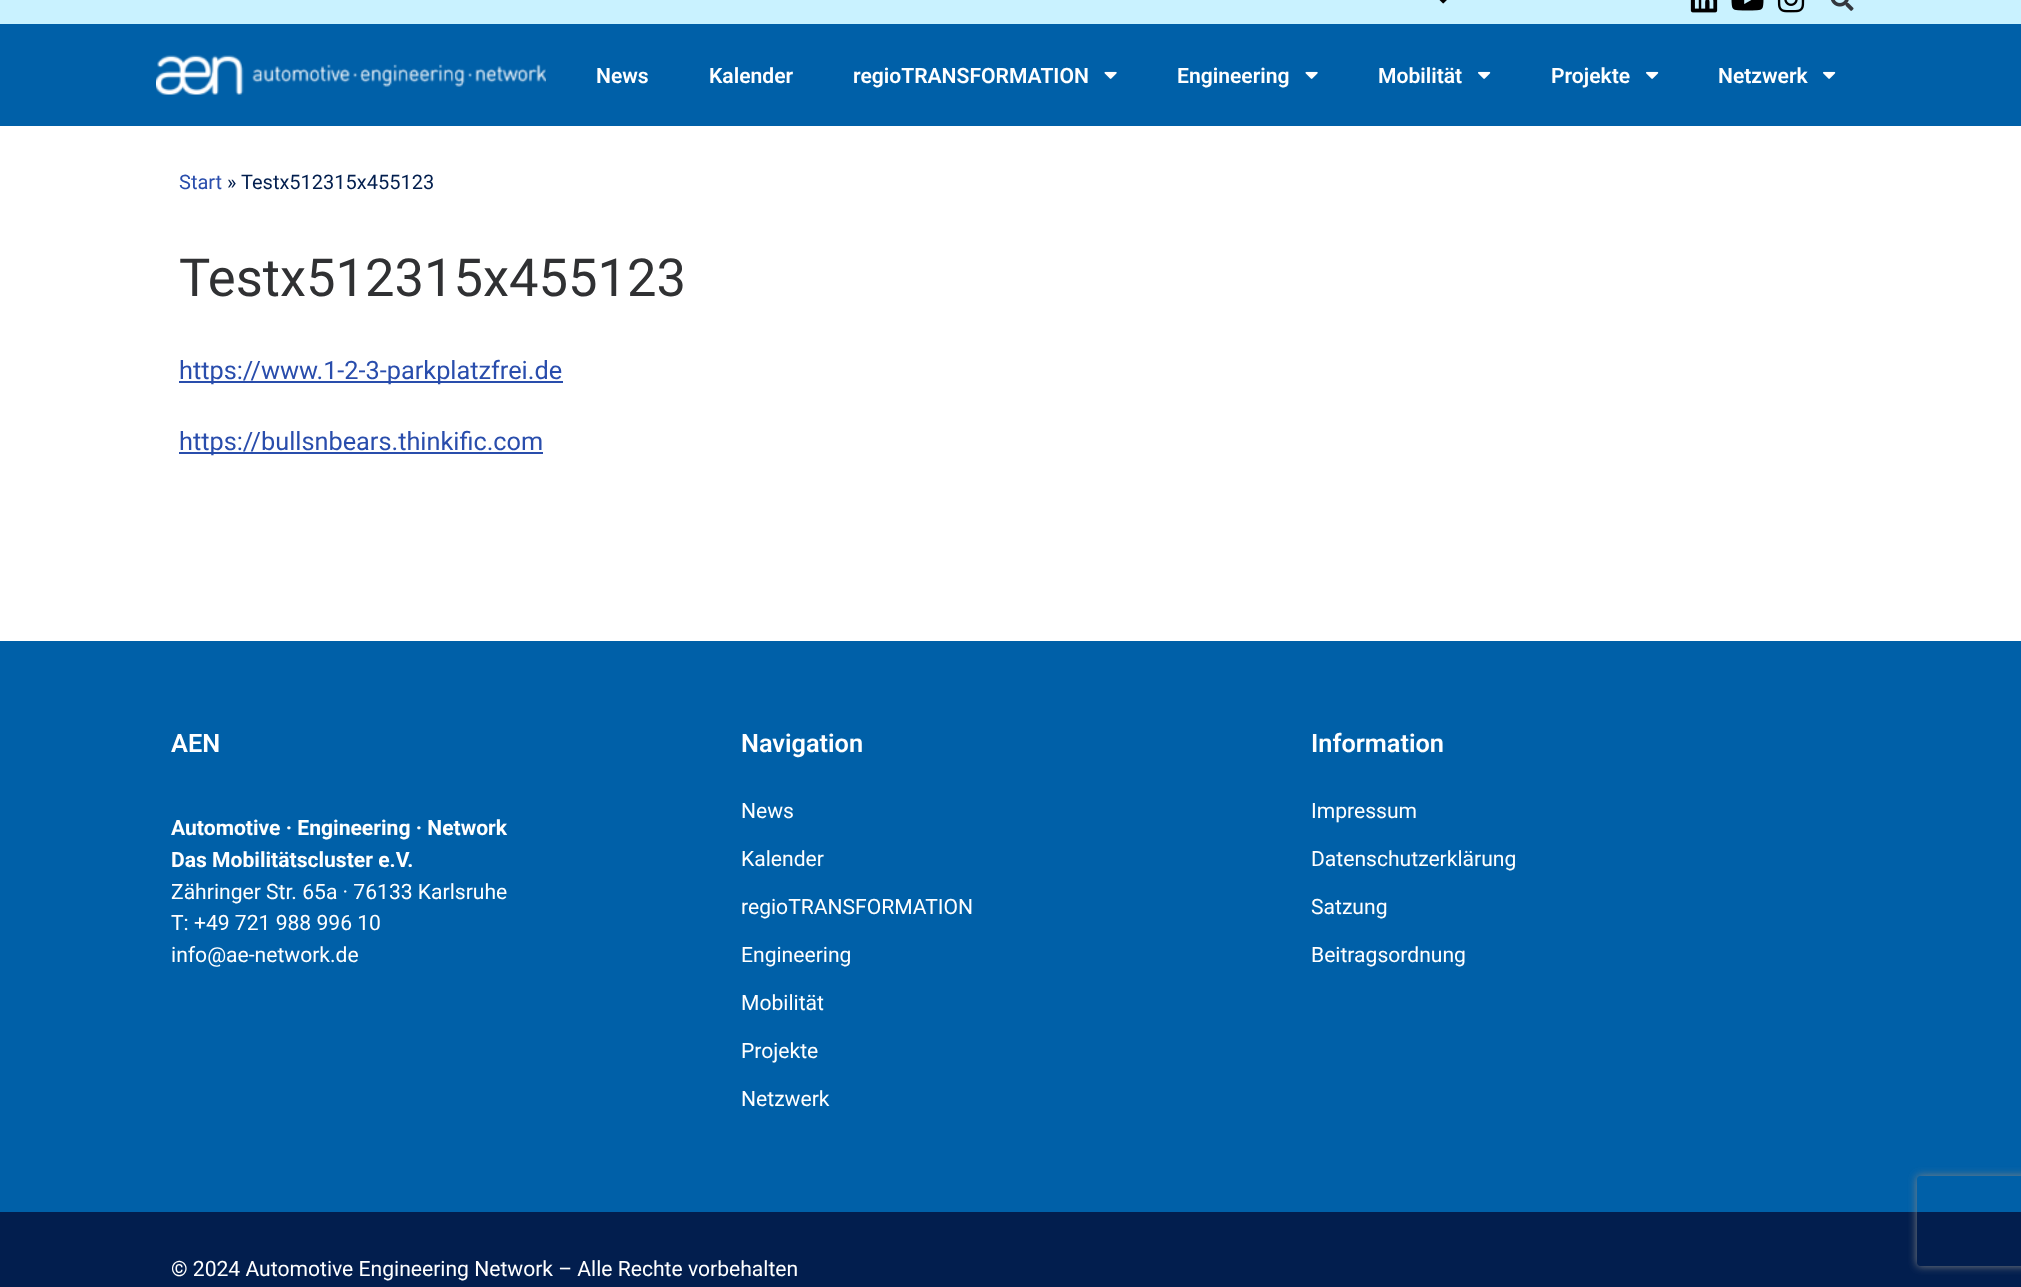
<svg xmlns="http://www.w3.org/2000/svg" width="2021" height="1287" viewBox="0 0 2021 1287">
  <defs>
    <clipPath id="clip1"><path d="M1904 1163H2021V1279H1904ZM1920 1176H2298C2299.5 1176 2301 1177.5 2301 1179V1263C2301 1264.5 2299.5 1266 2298 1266H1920C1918.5 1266 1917 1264.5 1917 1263V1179C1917 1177.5 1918.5 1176 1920 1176Z" clip-rule="evenodd"/></clipPath>
    <filter id="blur1" x="-50%" y="-200%" width="200%" height="500%"><feGaussianBlur stdDeviation="4"/></filter>
  </defs>
  <rect width="100%" height="100%" fill="#ffffff"/>
  <rect x="0" y="0" width="2021" height="24" fill="#c9f2ff"/>
  <image x="1439" y="0" width="8" height="4" href="img1.png"/>
  <image x="1690" y="0" width="28" height="13" href="img2.png"/>
  <image x="1731" y="0" width="33" height="11" href="img3.png"/>
  <image x="1777" y="0" width="28" height="13" href="img4.png"/>
  <image x="1831" y="0" width="23" height="11" href="img5.png"/>
  <rect x="0" y="24" width="2021" height="102" fill="#0060a8"/>
  <image x="156" y="55" width="390" height="40" href="img6.png"/>
  <text x="596" y="83" font-family="Roboto" font-size="21.1" font-weight="600" fill="#ffffff">News</text>
  <text x="709" y="83" font-family="Roboto" font-size="21.1" font-weight="600" fill="#ffffff">Kalender</text>
  <text x="853" y="83" font-family="Roboto" font-size="21.1" font-weight="600" fill="#ffffff">regioTRANSFORMATION</text>
  <image x="1104" y="71" width="13" height="8" href="img7.png"/>
  <text x="1177" y="83" font-family="Roboto" font-size="21.1" font-weight="600" fill="#ffffff">Engineering</text>
  <image x="1305" y="71" width="13" height="8" href="img7.png"/>
  <text x="1378" y="83" font-family="Roboto" font-size="21.1" font-weight="600" fill="#ffffff">Mobilität</text>
  <image x="1478" y="71" width="13" height="8" href="img8.png"/>
  <text x="1551" y="83" font-family="Roboto" font-size="21.1" font-weight="600" fill="#ffffff">Projekte</text>
  <image x="1646" y="71" width="13" height="8" href="img8.png"/>
  <text x="1718" y="83" font-family="Roboto" font-size="21.1" font-weight="600" fill="#ffffff">Netzwerk</text>
  <image x="1823" y="71" width="13" height="8" href="img8.png"/>
  <text x="179" y="189" font-family="Roboto" font-size="20" fill="#294dac">Start</text>
  <text x="227" y="189" font-family="Roboto" font-size="20" fill="#021e4e">»</text>
  <text x="241" y="189" font-family="Roboto" font-size="20" fill="#021e4e">Testx512315x455123</text>
  <text x="179" y="296" font-family="Roboto" font-size="52.5" fill="#303133">Testx512315x455123</text>
  <rect x="179" y="381" width="384" height="2" fill="#294dac"/>
  <text x="179" y="379" font-family="Roboto" font-size="25.3" fill="#294dac">https://www.1-2-3-parkplatzfrei.de</text>
  <rect x="179" y="452" width="364" height="2" fill="#294dac"/>
  <text x="179" y="450" font-family="Roboto" font-size="25.3" fill="#294dac">https://bullsnbears.thinkific.com</text>
  <rect x="0" y="641" width="2021" height="571" fill="#0060a8"/>
  <text x="171" y="752" font-family="Roboto" font-size="25.3" font-weight="600" fill="#ffffff">AEN</text>
  <text x="171" y="835" font-family="Roboto" font-size="21.1" font-weight="bold" fill="#ffffff">Automotive · Engineering · Network</text>
  <text x="171" y="867" font-family="Roboto" font-size="21.1" font-weight="bold" fill="#ffffff">Das Mobilitätscluster e.V.</text>
  <text x="171" y="899" font-family="Roboto" font-size="21.1" fill="#ffffff">Zähringer Str. 65a · 76133 Karlsruhe</text>
  <text x="171" y="930" font-family="Roboto" font-size="21.1" fill="#ffffff">T: +49 721 988 996 10</text>
  <text x="171" y="962" font-family="Roboto" font-size="21.1" fill="#ffffff">info@ae-network.de</text>
  <text x="741" y="752" font-family="Roboto" font-size="25.3" font-weight="600" fill="#ffffff">Navigation</text>
  <text x="741" y="818" font-family="Roboto" font-size="21.1" fill="#ffffff">News</text>
  <text x="741" y="866" font-family="Roboto" font-size="21.1" fill="#ffffff">Kalender</text>
  <text x="741" y="914" font-family="Roboto" font-size="21.1" fill="#ffffff">regioTRANSFORMATION</text>
  <text x="741" y="962" font-family="Roboto" font-size="21.1" fill="#ffffff">Engineering</text>
  <text x="741" y="1010" font-family="Roboto" font-size="21.1" fill="#ffffff">Mobilität</text>
  <text x="741" y="1058" font-family="Roboto" font-size="21.1" fill="#ffffff">Projekte</text>
  <text x="741" y="1106" font-family="Roboto" font-size="21.1" fill="#ffffff">Netzwerk</text>
  <text x="1311" y="752" font-family="Roboto" font-size="25.3" font-weight="600" fill="#ffffff">Information</text>
  <text x="1311" y="818" font-family="Roboto" font-size="21.1" fill="#ffffff">Impressum</text>
  <text x="1311" y="866" font-family="Roboto" font-size="21.1" fill="#ffffff">Datenschutzerklärung</text>
  <text x="1311" y="914" font-family="Roboto" font-size="21.1" fill="#ffffff">Satzung</text>
  <text x="1311" y="962" font-family="Roboto" font-size="21.1" fill="#ffffff">Beitragsordnung</text>
  <rect x="0" y="1212" width="2021" height="75" fill="#021e4e"/>
  <text x="171" y="1276" font-family="Roboto" font-size="21.1" fill="#ffffff">© 2024 Automotive Engineering Network – Alle Rechte vorbehalten</text>
  <g clip-path="url(#clip1)">
    <rect x="1917" y="1176" width="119" height="90" rx="3" fill="#808080" filter="url(#blur1)"/>
  </g>
</svg>
